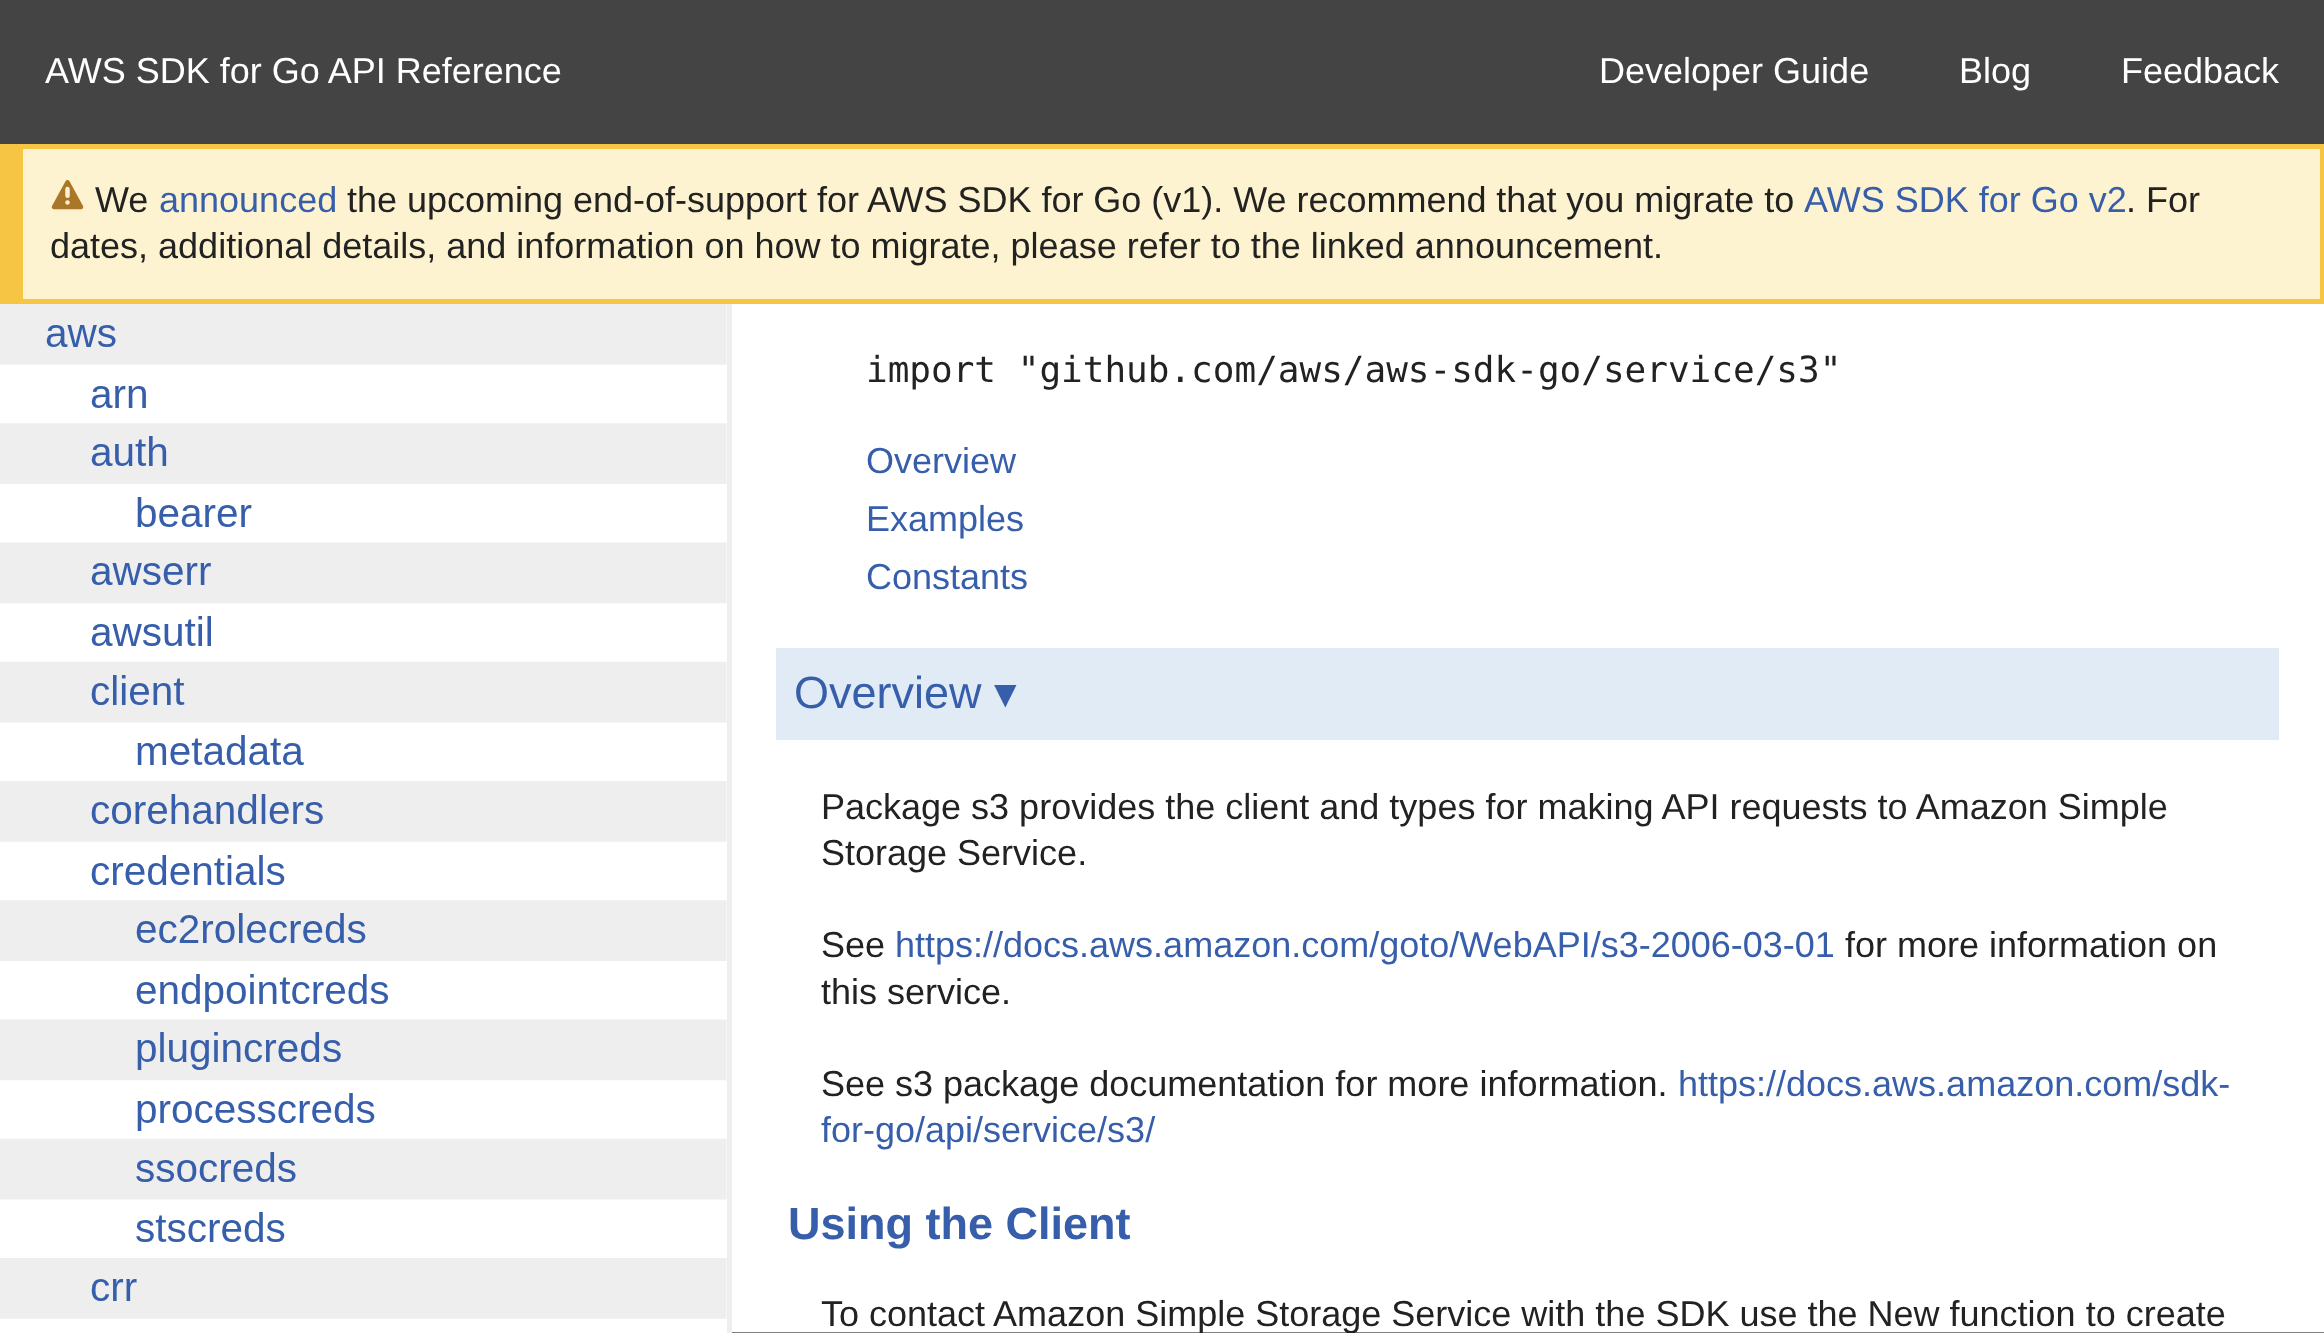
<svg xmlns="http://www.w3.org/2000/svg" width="2324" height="1333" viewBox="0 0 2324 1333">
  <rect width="100%" height="100%" fill="#ffffff"/>
  <rect x="0" y="0" width="2324" height="144" fill="#444444"/>
  <text x="45" y="83" font-family="Liberation Sans" font-size="36" fill="#ffffff">AWS SDK for Go API Reference</text>
  <text x="1599" y="83" font-family="Liberation Sans" font-size="36" fill="#ffffff">Developer Guide</text>
  <text x="1959" y="83" font-family="Liberation Sans" font-size="36" fill="#ffffff">Blog</text>
  <text x="2121" y="83" font-family="Liberation Sans" font-size="36" fill="#ffffff">Feedback</text>
  <rect x="23" y="149" width="2297" height="150" fill="#fdf3d0"/>
  <rect x="23" y="144" width="2301" height="5" fill="#f7c544"/>
  <rect x="2320" y="144" width="4" height="160" fill="#f7c544"/>
  <rect x="23" y="299" width="2301" height="5" fill="#f7c544"/>
  <rect x="0" y="144" width="23" height="160" fill="#f7c544"/>
  <image x="51" y="180" width="33" height="30" href="img1.png"/>
  <text x="95" y="212" font-family="Liberation Sans" font-size="36" fill="#222222">We</text>
  <text x="159" y="212" font-family="Liberation Sans" font-size="36" fill="#375eab">announced</text>
  <text x="347" y="212" word-spacing="-0.1" font-family="Liberation Sans" font-size="36" fill="#222222">the upcoming end-of-support for AWS SDK for Go (v1). We recommend that you migrate to</text>
  <text x="1804" y="212" font-family="Liberation Sans" font-size="36" fill="#375eab">AWS SDK for Go v2</text>
  <text x="2126" y="212" font-family="Liberation Sans" font-size="36" fill="#222222">. For</text>
  <text x="50" y="258" font-family="Liberation Sans" font-size="36" fill="#222222">dates, additional details, and information on how to migrate, please refer to the linked announcement.</text>
  <rect x="727" y="304" width="5" height="1029" fill="#eeeeee"/>
  <image x="0" y="304" width="727" height="1029" href="img2.png"/>
  <text x="866" y="382" font-family="DejaVu Sans Mono" font-size="36" fill="#222222">import "github.com/aws/aws-sdk-go/service/s3"</text>
  <text x="866" y="473" font-family="Liberation Sans" font-size="36" fill="#375eab">Overview</text>
  <text x="866" y="531" font-family="Liberation Sans" font-size="36" fill="#375eab">Examples</text>
  <text x="866" y="589" font-family="Liberation Sans" font-size="36" fill="#375eab">Constants</text>
  <rect x="776" y="648" width="1503" height="92" fill="#e0ebf5"/>
  <text x="794" y="708" font-family="Liberation Sans" font-size="45" fill="#375eab">Overview</text>
  <text x="994" y="708" font-family="DejaVu Sans" font-size="45" fill="#375eab">▾</text>
  <text x="821" y="819" font-family="Liberation Sans" font-size="36" fill="#222222">Package s3 provides the client and types for making API requests to Amazon Simple</text>
  <text x="821" y="865" font-family="Liberation Sans" font-size="36" fill="#222222">Storage Service.</text>
  <text x="821" y="957" font-family="Liberation Sans" font-size="36" fill="#222222">See</text>
  <text x="895" y="957" font-family="Liberation Sans" font-size="36" fill="#375eab">https://docs.aws.amazon.com/goto/WebAPI/s3-2006-03-01</text>
  <text x="1845" y="957" font-family="Liberation Sans" font-size="36" fill="#222222">for more information on</text>
  <text x="821" y="1004" font-family="Liberation Sans" font-size="36" fill="#222222">this service.</text>
  <text x="821" y="1096" font-family="Liberation Sans" font-size="36" fill="#222222">See s3 package documentation for more information.</text>
  <text x="1678" y="1096" font-family="Liberation Sans" font-size="36" fill="#375eab">https://docs.aws.amazon.com/sdk-</text>
  <text x="821" y="1142" font-family="Liberation Sans" font-size="36" fill="#375eab">for-go/api/service/s3/</text>
  <text x="788" y="1239" font-family="Liberation Sans" font-size="45" font-weight="bold" fill="#375eab">Using the Client</text>
  <rect x="732" y="1332" width="1592" height="1" fill="#808080"/>
  <text x="821" y="1326" font-family="Liberation Sans" font-size="36" fill="#222222">To contact Amazon Simple Storage Service with the SDK use the New function to create</text>
</svg>
